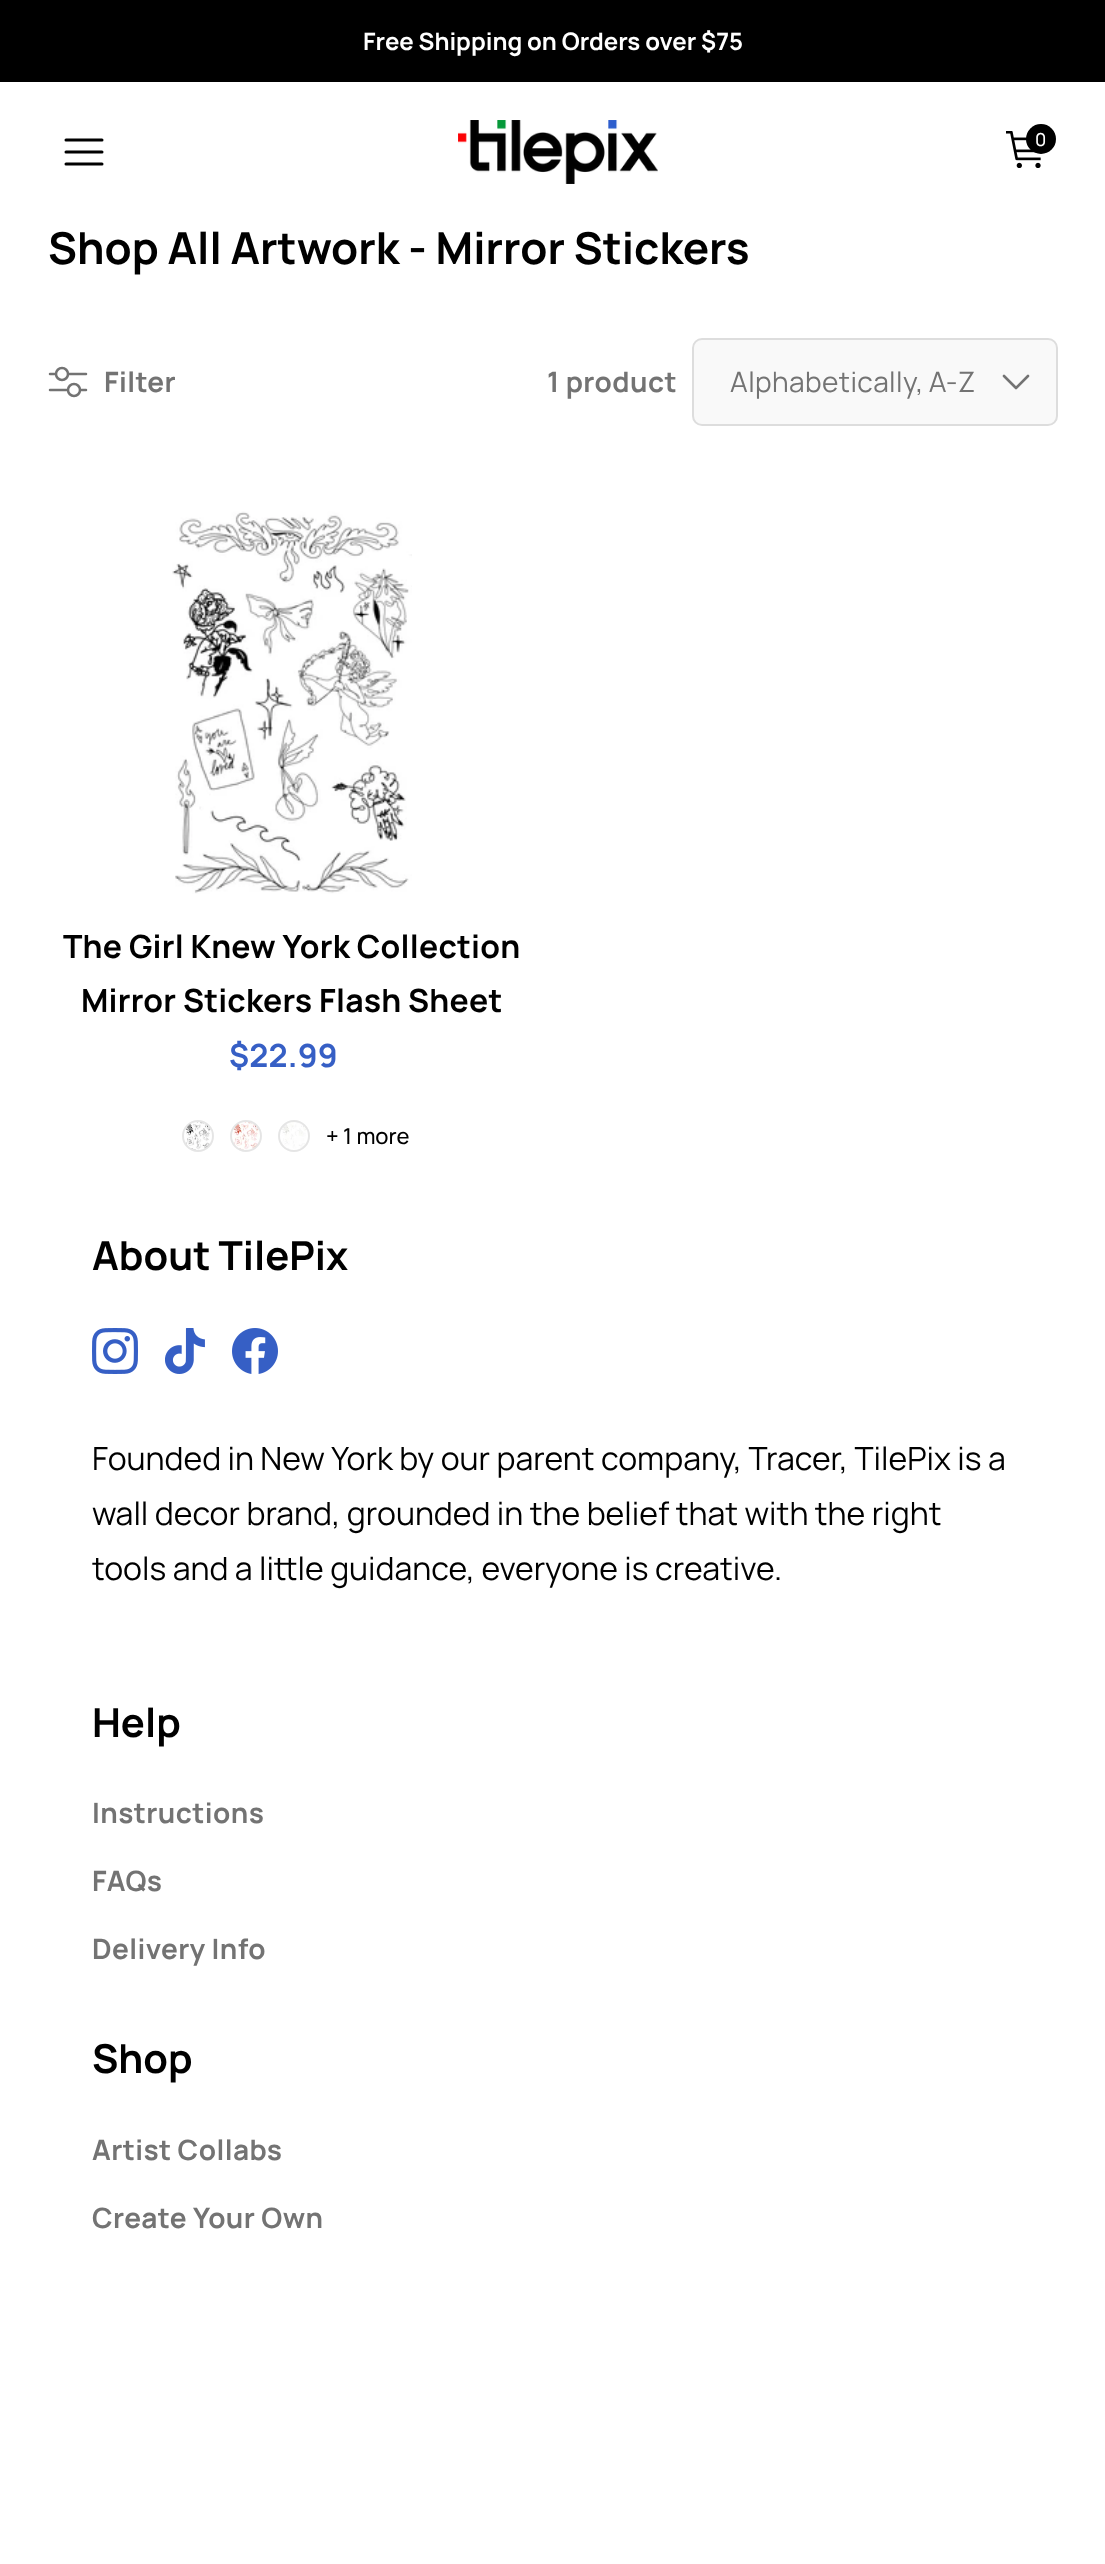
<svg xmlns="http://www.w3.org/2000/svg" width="1105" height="2564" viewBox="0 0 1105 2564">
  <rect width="100%" height="100%" fill="#ffffff"/>
  <rect x="0" y="0" width="1105" height="82" fill="#000000"/>
  <text x="363" y="50" font-family="Manrope" font-size="24" font-weight="bold" fill="#ffffff">Free Shipping on Orders over $75</text>
  <path d="M66 152H102M66 140H102M66 164H102" fill="none" stroke="#000000" stroke-width="3" stroke-linecap="round" stroke-linejoin="round"/>
  <image x="458" y="120" width="200" height="64" href="img1.png"/>
  <image x="1006" y="131" width="35" height="37" href="img2.png"/>
  <circle cx="1041" cy="139" r="15" fill="#000000"/>
  <text x="1035" y="146" font-family="Manrope" font-size="18" font-weight="500" fill="#ffffff">0</text>
  <text x="48" y="264" font-family="Manrope" font-size="44" font-weight="bold" fill="#000000">Shop All Artwork - Mirror Stickers</text>
  <path d="M50 374H86M50 390H86" fill="none" stroke="#737373" stroke-width="2.5" stroke-linecap="round" stroke-linejoin="round"/>
  <circle cx="62" cy="374" r="6" fill="#ffffff" stroke="#737373" stroke-width="2.5"/>
  <circle cx="74" cy="390" r="6" fill="#ffffff" stroke="#737373" stroke-width="2.5"/>
  <text x="104" y="392" font-family="Manrope" font-size="28" font-weight="bold" letter-spacing="0.4" fill="#737373">Filter</text>
  <text x="547" y="392" font-family="Manrope" font-size="28" font-weight="bold" letter-spacing="0.4" fill="#737373">1 product</text>
  <rect x="693" y="339" width="364" height="86" rx="9" fill="#f9f9f9" stroke="#dddddd" stroke-width="2"/>
  <text x="730" y="392" word-spacing="-1" font-family="Manrope" font-size="28" letter-spacing="0.4" fill="#737373">Alphabetically, A-Z</text>
  <path d="M1004 376L1016 388L1028 376" fill="none" stroke="#737373" stroke-width="2.6" stroke-linecap="round" stroke-linejoin="round"/>
  <image x="172" y="511" width="240" height="383" href="img3.png"/>
  <text x="63" y="958" font-family="Manrope" font-size="32" font-weight="bold" letter-spacing="0.2" fill="#000000">The Girl Knew York Collection</text>
  <text x="81" y="1012" font-family="Manrope" font-size="32" font-weight="bold" letter-spacing="0.2" fill="#000000">Mirror Stickers Flash Sheet</text>
  <text x="229" y="1067" font-family="Manrope" font-size="32" font-weight="bold" letter-spacing="0.2" fill="#365fc5">$22.99</text>
  <image x="186" y="1122" width="25" height="28" href="img4.png"/>
  <circle cx="198" cy="1136" r="15" fill="none" stroke="#000000" stroke-opacity="0.1" stroke-width="2"/>
  <image x="233" y="1122" width="26" height="28" href="img5.png"/>
  <circle cx="246" cy="1136" r="15" fill="none" stroke="#000000" stroke-opacity="0.1" stroke-width="2"/>
  <image x="282" y="1122" width="24" height="27" href="img6.png"/>
  <circle cx="294" cy="1136" r="15" fill="none" stroke="#000000" stroke-opacity="0.1" stroke-width="2"/>
  <text x="326" y="1144" font-family="Manrope" font-size="22" font-weight="500" fill="#000000">+ 1 more</text>
  <text x="92" y="1270" font-family="Manrope" font-size="40" font-weight="bold" fill="#000000">About TilePix</text>
  <image x="92" y="1328" width="46" height="46" href="img7.png"/>
  <image x="165" y="1328" width="40" height="46" href="img8.png"/>
  <image x="232" y="1328" width="46" height="46" href="img9.png"/>
  <text x="92" y="1470" font-family="Manrope" font-size="32" fill="#000000">Founded in New York by our parent company, Tracer, TilePix is a</text>
  <text x="92" y="1525" font-family="Manrope" font-size="32" fill="#000000">wall decor brand, grounded in the belief that with the right</text>
  <text x="92" y="1580" font-family="Manrope" font-size="32" fill="#000000">tools and a little guidance, everyone is creative.</text>
  <text x="92" y="1737" font-family="Manrope" font-size="40" font-weight="bold" fill="#000000">Help</text>
  <text x="92" y="1823" font-family="Manrope" font-size="28" font-weight="bold" letter-spacing="0.4" fill="#737373">Instructions</text>
  <text x="92" y="1891" font-family="Manrope" font-size="28" font-weight="bold" letter-spacing="0.4" fill="#737373">FAQs</text>
  <text x="92" y="1959" font-family="Manrope" font-size="28" font-weight="bold" letter-spacing="0.4" fill="#737373">Delivery Info</text>
  <text x="92" y="2073" font-family="Manrope" font-size="40" font-weight="bold" fill="#000000">Shop</text>
  <text x="92" y="2160" font-family="Manrope" font-size="28" font-weight="bold" letter-spacing="0.4" fill="#737373">Artist Collabs</text>
  <text x="92" y="2228" font-family="Manrope" font-size="28" font-weight="bold" letter-spacing="0.4" fill="#737373">Create Your Own</text>
</svg>
